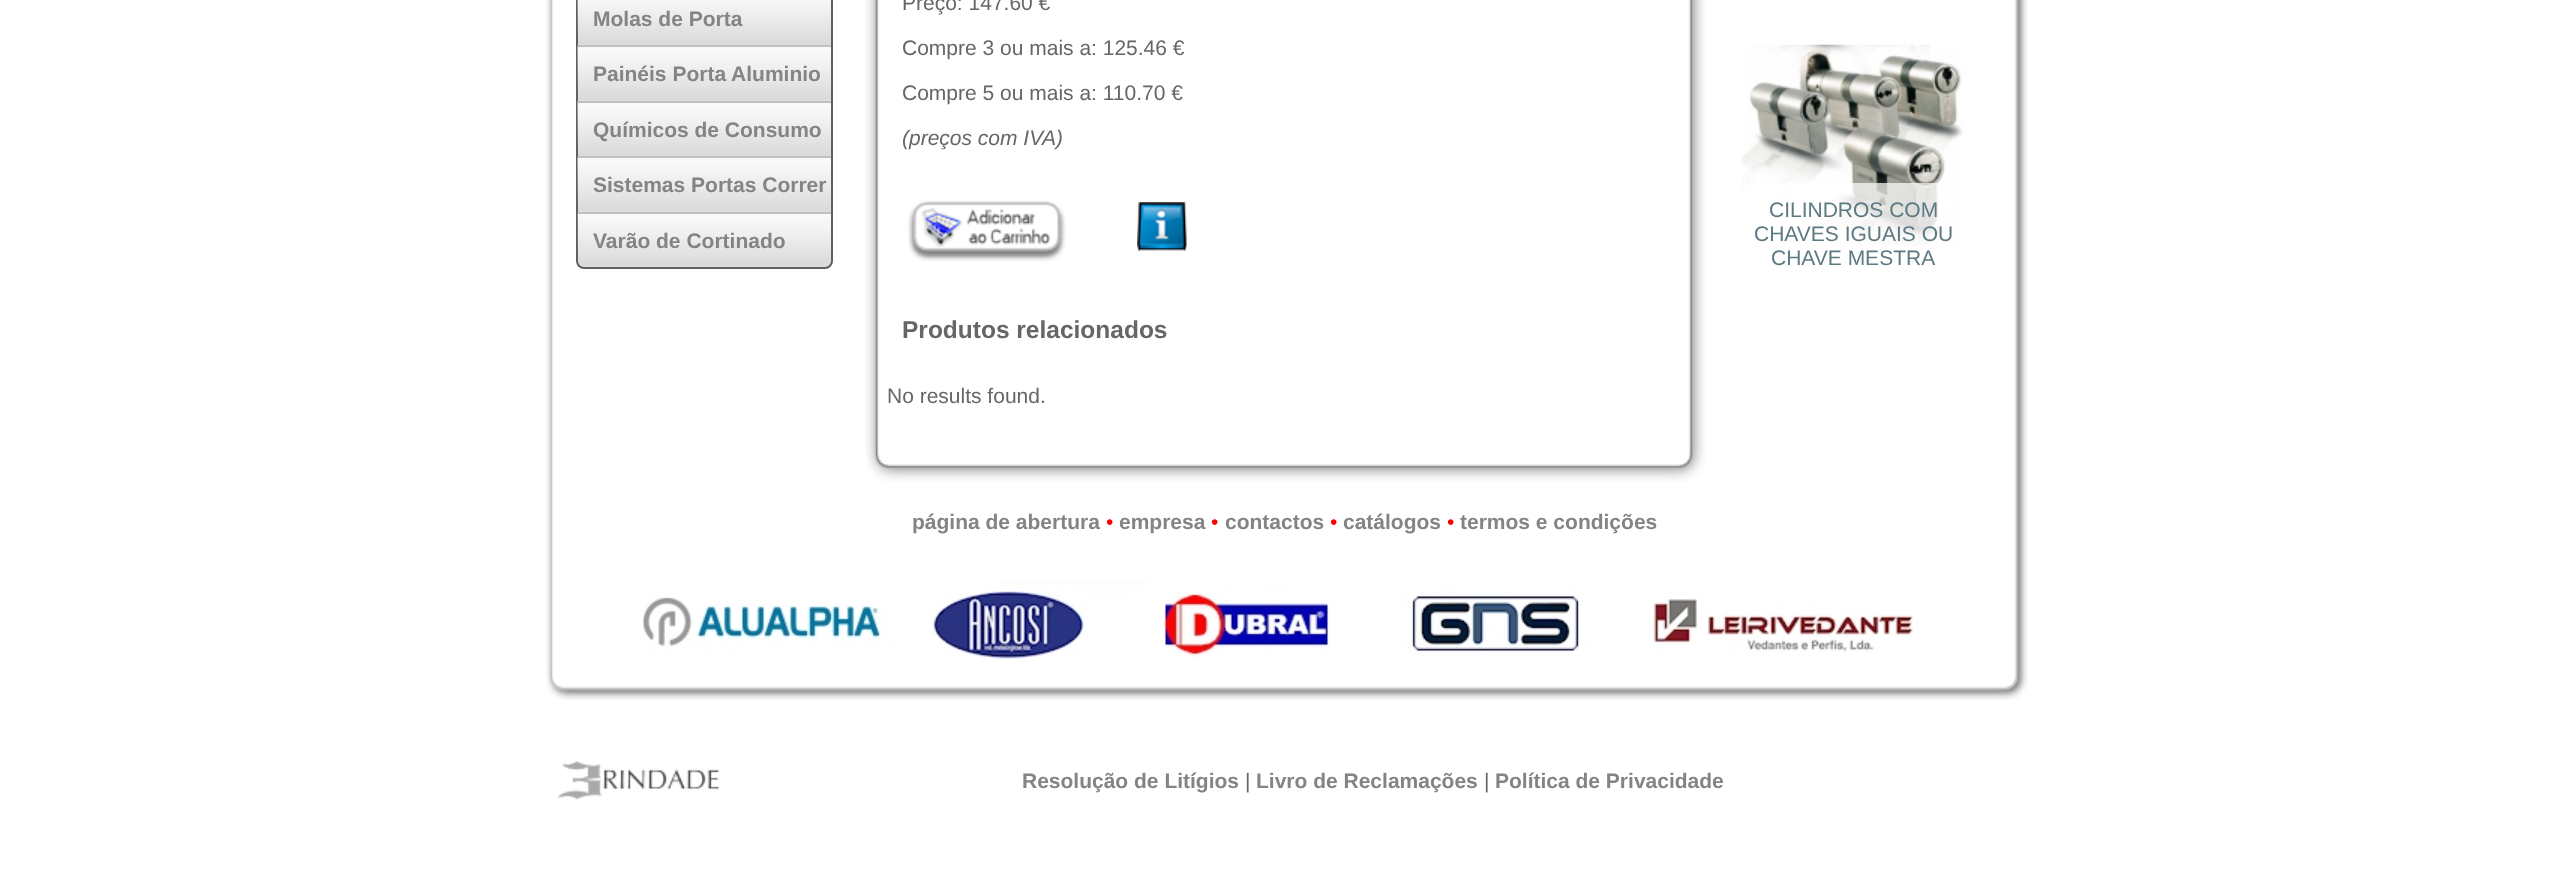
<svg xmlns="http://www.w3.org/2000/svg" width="2575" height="872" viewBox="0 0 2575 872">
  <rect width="100%" height="100%" fill="#ffffff"/>
  <image x="545" y="0" width="1483" height="664" href="img1.png"/>
  <rect x="577" y="-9" width="255" height="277" rx="7" fill="#dedede" stroke="#5f5f5f" stroke-width="2"/>
  <rect x="578" y="0" width="253" height="45" fill="#dadada"/>
  <image x="577" y="0" width="254" height="42" href="img2.png"/>
  <text x="593" y="26" font-family="Liberation Sans" font-size="21" font-weight="bold" fill="#848484">Molas de Porta</text>
  <rect x="578" y="47" width="253" height="54" fill="#dadada"/>
  <image x="577" y="44" width="254" height="54" href="img3.png"/>
  <rect x="578" y="45" width="253" height="2" fill="#c0c0c0"/>
  <text x="593" y="81" font-family="Liberation Sans" font-size="21" font-weight="bold" fill="#848484">Painéis Porta Aluminio</text>
  <rect x="578" y="103" width="253" height="53" fill="#dadada"/>
  <image x="577" y="100" width="254" height="53" href="img4.png"/>
  <rect x="578" y="101" width="253" height="2" fill="#c0c0c0"/>
  <text x="593" y="137" font-family="Liberation Sans" font-size="21" font-weight="bold" fill="#848484">Químicos de Consumo</text>
  <rect x="578" y="158" width="253" height="54" fill="#dadada"/>
  <image x="577" y="155" width="254" height="54" href="img5.png"/>
  <rect x="578" y="156" width="253" height="2" fill="#c0c0c0"/>
  <text x="593" y="192" font-family="Liberation Sans" font-size="21" font-weight="bold" fill="#848484">Sistemas Portas Correr</text>
  <path d="M578 213H831V259C831 263.5 827.5 267 823 267H586C581.5 267 578 263.5 578 259Z" fill="#dadada"/>
  <image x="577" y="211" width="254" height="49" href="img6.png"/>
  <rect x="578" y="212" width="253" height="2" fill="#c0c0c0"/>
  <text x="593" y="248" font-family="Liberation Sans" font-size="21" font-weight="bold" fill="#848484">Varão de Cortinado</text>
  <image x="865" y="0" width="841" height="445" href="img7.png"/>
  <text x="902" y="10" font-family="Liberation Sans" font-size="21" fill="#666666">Preço: 147.60 €</text>
  <text x="902" y="55" font-family="Liberation Sans" font-size="21" fill="#666666">Compre 3 ou mais a: 125.46 €</text>
  <text x="902" y="100" font-family="Liberation Sans" font-size="21" fill="#666666">Compre 5 ou mais a: 110.70 €</text>
  <text x="902" y="145" font-family="Liberation Sans" font-size="21" font-style="italic" fill="#666666">(preços com IVA)</text>
  <image x="907" y="200" width="159" height="62" href="img8.png"/>
  <image x="1137" y="202" width="50" height="50" href="img9.png"/>
  <text x="902" y="338" font-family="Liberation Sans" font-size="24.5" font-weight="bold" fill="#666666">Produtos relacionados</text>
  <text x="887" y="403" font-family="Liberation Sans" font-size="21" fill="#666666">No results found.</text>
  <image x="866" y="445" width="839" height="37" href="img10.png"/>
  <text x="912" y="529" font-family="Liberation Sans" font-size="21" font-weight="bold" fill="#848484">página de abertura</text>
  <text x="1106" y="529" font-family="Liberation Sans" font-size="21" fill="#ff0000">•</text>
  <text x="1119" y="529" font-family="Liberation Sans" font-size="21" font-weight="bold" fill="#848484">empresa</text>
  <text x="1211" y="529" font-family="Liberation Sans" font-size="21" fill="#ff0000">•</text>
  <text x="1225" y="529" font-family="Liberation Sans" font-size="21" font-weight="bold" fill="#848484">contactos</text>
  <text x="1330" y="529" font-family="Liberation Sans" font-size="21" fill="#ff0000">•</text>
  <text x="1343" y="529" font-family="Liberation Sans" font-size="21" font-weight="bold" fill="#848484">catálogos</text>
  <text x="1447" y="529" font-family="Liberation Sans" font-size="21" fill="#ff0000">•</text>
  <text x="1460" y="529" font-family="Liberation Sans" font-size="21" font-weight="bold" fill="#848484">termos e condições</text>
  <image x="1741" y="44" width="222" height="202" href="img11.png"/>
  <rect x="1745" y="183" width="202" height="63" fill="#ffffff" fill-opacity="0.7"/>
  <text x="1769" y="217" font-family="Liberation Sans" font-size="21" fill="#5d7982">CILINDROS COM</text>
  <text x="1754" y="241" font-family="Liberation Sans" font-size="21" fill="#5d7982">CHAVES IGUAIS OU</text>
  <text x="1771" y="265" font-family="Liberation Sans" font-size="21" fill="#5d7982">CHAVE MESTRA</text>
  <image x="643" y="580" width="1270" height="79" href="img12.png"/>
  <image x="546" y="664" width="1482" height="6" href="img13.png"/>
  <image x="546" y="670" width="1482" height="30" href="img14.png"/>
  <image x="557" y="761" width="162" height="39" href="img15.png"/>
  <text x="1022" y="788" font-family="Liberation Sans" font-size="21" font-weight="bold" fill="#848484">Resolução de Litígios</text>
  <text x="1245" y="788" font-family="Liberation Sans" font-size="21" fill="#666666">|</text>
  <text x="1256" y="788" font-family="Liberation Sans" font-size="21" font-weight="bold" fill="#848484">Livro de Reclamações</text>
  <text x="1484" y="788" font-family="Liberation Sans" font-size="21" fill="#666666">|</text>
  <text x="1495" y="788" font-family="Liberation Sans" font-size="21" font-weight="bold" fill="#848484">Política de Privacidade</text>
</svg>
